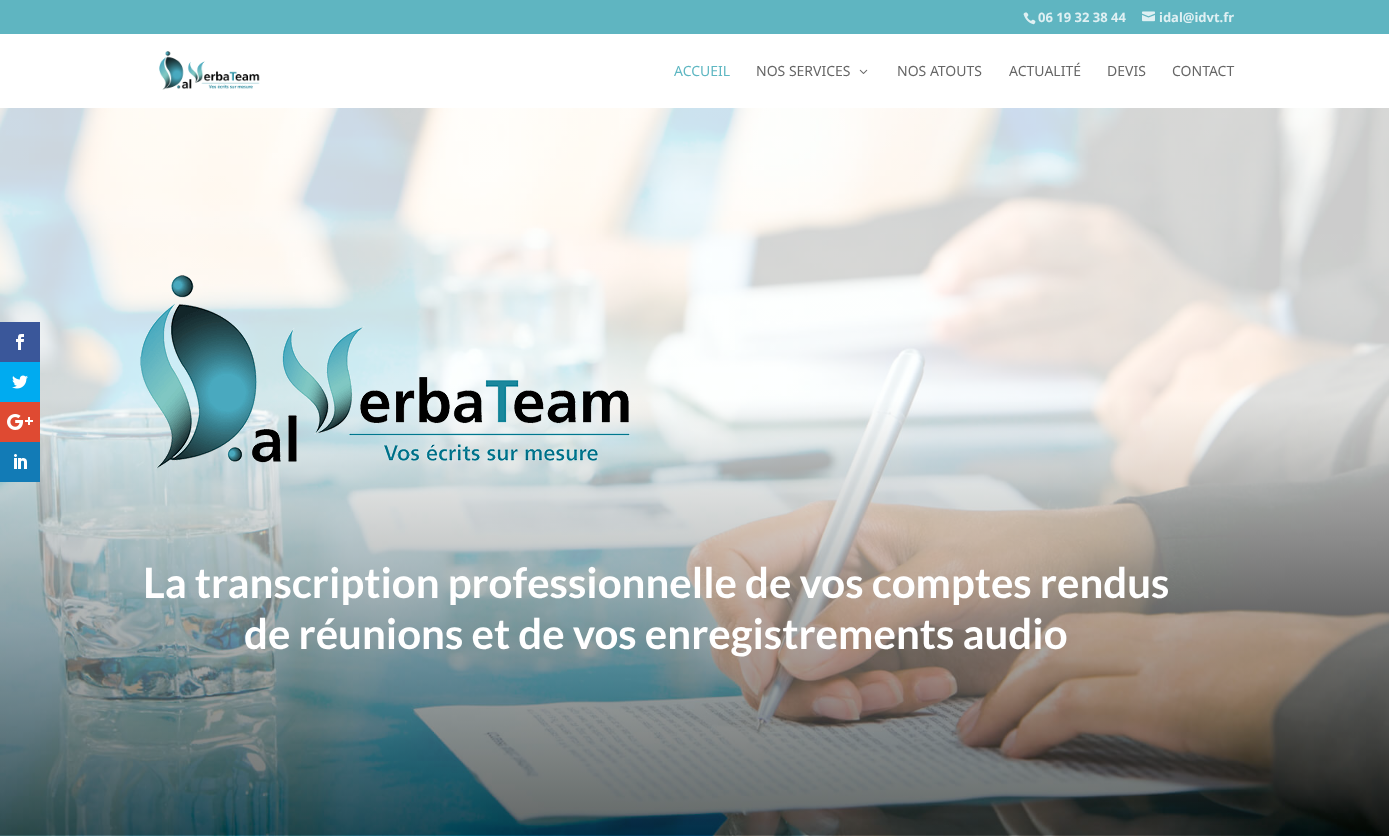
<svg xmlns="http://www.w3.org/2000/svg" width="1389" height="836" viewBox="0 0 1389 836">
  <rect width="100%" height="100%" fill="#ffffff"/>
  <image x="0" y="108" width="1389" height="728" href="img9.png"/>
  <rect x="0" y="322" width="40" height="40" fill="#3a579a"/>
  <image x="16" y="334" width="8" height="16" href="img1.png"/>
  <rect x="0" y="362" width="40" height="40" fill="#00abf0"/>
  <image x="12" y="375" width="16" height="14" href="img2.png"/>
  <rect x="0" y="402" width="40" height="40" fill="#df4a32"/>
  <image x="7" y="414" width="26" height="16" href="img3.png"/>
  <rect x="0" y="442" width="40" height="40" fill="#127bb6"/>
  <image x="14" y="454" width="13" height="15" href="img4.png"/>
  <rect x="0" y="0" width="1389" height="34" fill="#5fb5c1"/>
  <image x="1023" y="12" width="13" height="13" href="img5.png"/>
  <text x="1038" y="22" font-family="Noto Sans" font-size="13" font-weight="bold" fill="#dff0f3">06 19 32 38 44</text>
  <image x="1142" y="11" width="13" height="11" href="img6.png"/>
  <text x="1159" y="22" font-family="Noto Sans" font-size="13" font-weight="bold" fill="#dff0f3">idal@idvt.fr</text>
  <image x="159" y="51" width="101" height="39" href="img7.png"/>
  <text x="674" y="76" font-family="Noto Sans" font-size="14" fill="#5eb7c2">ACCUEIL</text>
  <text x="756" y="76" font-family="Noto Sans" font-size="14" fill="#666666">NOS SERVICES</text>
  <image x="859" y="69" width="9" height="5" href="img8.png"/>
  <text x="897" y="76" font-family="Noto Sans" font-size="14" fill="#666666">NOS ATOUTS</text>
  <text x="1009" y="76" font-family="Noto Sans" font-size="14" fill="#666666">ACTUALITÉ</text>
  <text x="1107" y="76" font-family="Noto Sans" font-size="14" fill="#666666">DEVIS</text>
  <text x="1172" y="76" font-family="Noto Sans" font-size="14" fill="#666666">CONTACT</text>
  <image x="140" y="275" width="490" height="194" href="img10.png"/>
  <text x="143" y="598" font-family="Lato" font-size="42" font-weight="bold" fill="#ffffff">La transcription professionnelle de vos comptes rendus</text>
  <text x="244" y="649" font-family="Lato" font-size="42" font-weight="bold" fill="#ffffff">de réunions et de vos enregistrements audio</text>
</svg>
